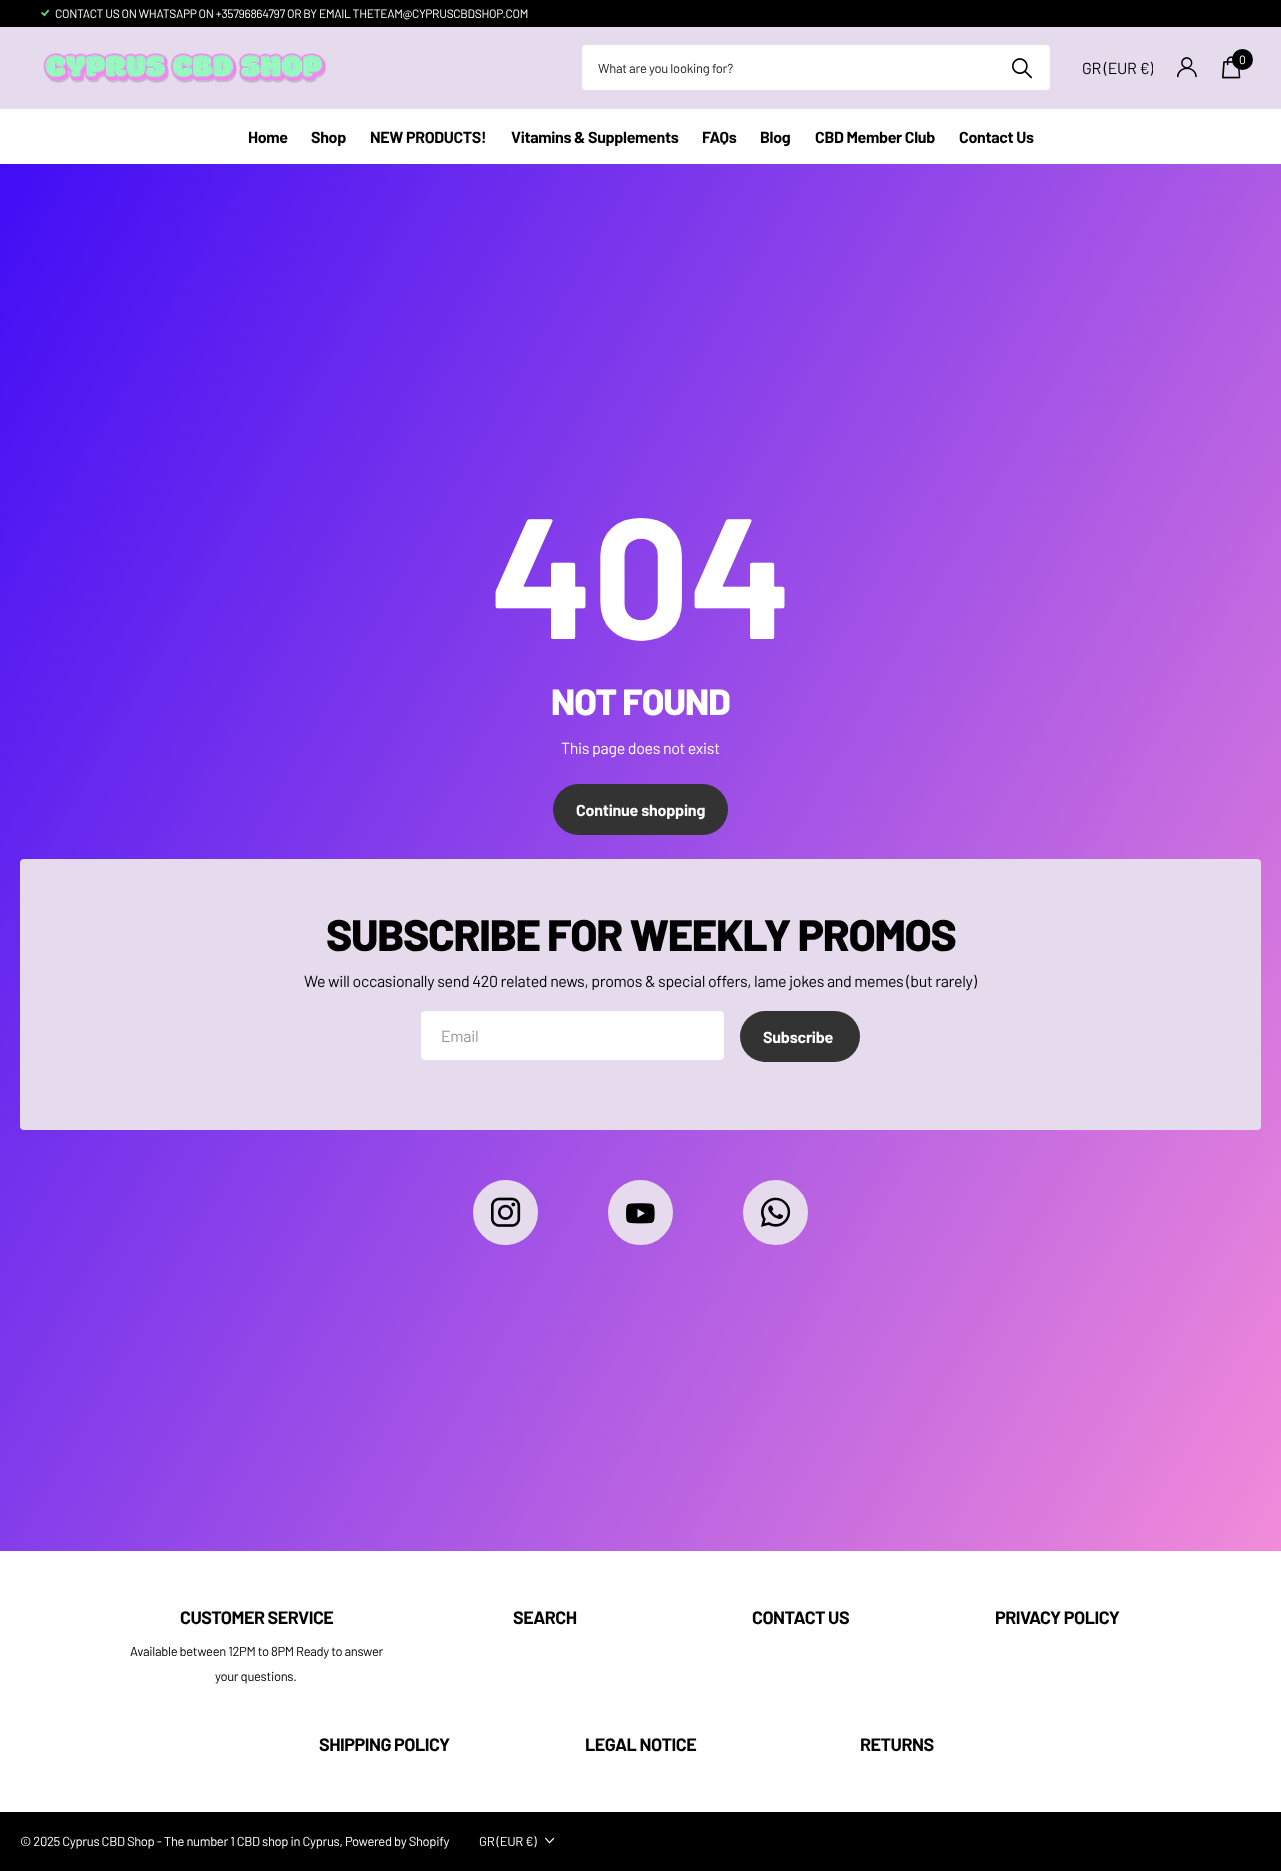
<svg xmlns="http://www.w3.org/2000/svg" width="1281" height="1871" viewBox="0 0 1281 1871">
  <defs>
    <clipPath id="clip1"><rect x="1082" y="46" width="71" height="44"/></clipPath>
    <linearGradient id="g1" gradientUnits="userSpaceOnUse" x1="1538" y1="1536" x2="-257" y2="499"><stop offset="0.04" stop-color="#ff94d7"/><stop offset="0.98" stop-color="#3f0cf5"/><stop offset="1" stop-color="#7b00f5"/></linearGradient>
  </defs>
  <rect width="100%" height="100%" fill="#ffffff"/>
  <rect x="0" y="0" width="1281" height="27" fill="#000000"/>
  <image x="41" y="9" width="9" height="8" href="img1.png"/>
  <text x="55" y="18" font-family="Barlow" font-size="12.05" letter-spacing="-0.32" fill="#ffffff">CONTACT US ON WHATSAPP ON +35796864797 OR BY EMAIL THETEAM@CYPRUSCBDSHOP.COM</text>
  <rect x="0" y="27" width="1281" height="82" fill="#e5dbed"/>
  <image x="43" y="53" width="283" height="30" href="img2.png"/>
  <rect x="582" y="45" width="468" height="45" rx="4" fill="#ffffff"/>
  <text x="598" y="73" font-family="Barlow" font-size="13" letter-spacing="-0.25" fill="#1a1a1a">What are you looking for?</text>
  <image x="1012" y="58" width="20" height="21" href="img3.png"/>
  <g clip-path="url(#clip1)">
    <text x="1082" y="74" font-family="Barlow" font-size="16" letter-spacing="-0.32" fill="#000000">GR (EUR €)</text>
  </g>
  <image x="1177" y="57" width="20" height="21" href="img4.png"/>
  <image x="1222" y="56" width="19" height="23" href="img5.png"/>
  <circle cx="1242.5" cy="59.5" r="10.5" fill="#000000"/>
  <text x="1239" y="64" font-family="Barlow" font-size="12" fill="#ffffff">0</text>
  <text x="248" y="143" font-family="Barlow" font-size="16" font-weight="bold" letter-spacing="-0.32" fill="#000000">Home</text>
  <text x="311" y="143" font-family="Barlow" font-size="16" font-weight="bold" letter-spacing="-0.32" fill="#000000">Shop</text>
  <text x="370" y="143" font-family="Barlow" font-size="16" font-weight="bold" letter-spacing="-0.32" fill="#000000">NEW PRODUCTS!</text>
  <text x="511" y="143" font-family="Barlow" font-size="16" font-weight="bold" letter-spacing="-0.32" fill="#000000">Vitamins &amp; Supplements</text>
  <text x="702" y="143" font-family="Barlow" font-size="16" font-weight="bold" letter-spacing="-0.32" fill="#000000">FAQs</text>
  <text x="760" y="143" font-family="Barlow" font-size="16" font-weight="bold" letter-spacing="-0.32" fill="#000000">Blog</text>
  <text x="815" y="143" font-family="Barlow" font-size="16" font-weight="bold" letter-spacing="-0.32" fill="#000000">CBD Member Club</text>
  <text x="959" y="143" font-family="Barlow" font-size="16" font-weight="bold" letter-spacing="-0.32" fill="#000000">Contact Us</text>
  <rect x="0" y="164" width="1281" height="1387" fill="url(#g1)"/>
  <text x="490" y="639" font-family="Barlow" font-size="171" font-weight="bold" letter-spacing="-1" fill="#ffffff">404</text>
  <text x="551" y="715" font-family="Barlow" font-size="36.5" font-weight="800" letter-spacing="-1" fill="#ffffff">NOT FOUND</text>
  <text x="561" y="754" font-family="Barlow" font-size="16" letter-spacing="-0.32" fill="#ffffff">This page does not exist</text>
  <rect x="553" y="784" width="175" height="51" rx="25.5" fill="#333333"/>
  <text x="576" y="816" font-family="Barlow" font-size="16" font-weight="bold" letter-spacing="-0.2" fill="#ffffff">Continue shopping</text>
  <rect x="20" y="859" width="1241" height="271" rx="4" fill="#e5dbed"/>
  <text x="326" y="951" font-family="Barlow" font-size="44" font-weight="800" letter-spacing="-1.3" fill="#000000">SUBSCRIBE FOR WEEKLY PROMOS</text>
  <text x="304" y="987" font-family="Barlow" font-size="16" letter-spacing="-0.32" fill="#000000">We will occasionally send 420 related news, promos &amp; special offers, lame jokes and memes (but rarely)</text>
  <rect x="421.5" y="1011.5" width="302" height="48" rx="3.5" fill="#ffffff" stroke="#ffffff"/>
  <text x="441" y="1042" font-family="Barlow" font-size="16" letter-spacing="-0.32" fill="#959595">Email</text>
  <rect x="740" y="1011" width="120" height="51" rx="25.5" fill="#333333"/>
  <text x="763" y="1043" font-family="Barlow" font-size="16" font-weight="bold" letter-spacing="-0.2" fill="#ffffff">Subscribe</text>
  <circle cx="505.5" cy="1212.5" r="31.5" fill="#e5dbed" stroke="#e5dbed" stroke-width="2"/>
  <image x="491" y="1197" width="30" height="30" href="img6.png"/>
  <circle cx="640.5" cy="1212.5" r="31.5" fill="#e5dbed" stroke="#e5dbed" stroke-width="2"/>
  <image x="626" y="1203" width="29" height="21" href="img7.png"/>
  <circle cx="775.5" cy="1212.5" r="31.5" fill="#e5dbed" stroke="#e5dbed" stroke-width="2"/>
  <image x="761" y="1197" width="30" height="30" href="img8.png"/>
  <text x="180" y="1624" font-family="Barlow" font-size="18" font-weight="bold" letter-spacing="-0.5" fill="#000000">CUSTOMER SERVICE</text>
  <text x="130" y="1656" font-family="Barlow" font-size="13" letter-spacing="-0.32" fill="#000000">Available between 12PM to 8PM Ready to answer</text>
  <text x="215" y="1681" font-family="Barlow" font-size="13" letter-spacing="-0.32" fill="#000000">your questions.</text>
  <text x="513" y="1624" font-family="Barlow" font-size="18" font-weight="bold" letter-spacing="-0.5" fill="#000000">SEARCH</text>
  <text x="752" y="1624" font-family="Barlow" font-size="18" font-weight="bold" letter-spacing="-0.5" fill="#000000">CONTACT US</text>
  <text x="995" y="1624" font-family="Barlow" font-size="18" font-weight="bold" letter-spacing="-0.5" fill="#000000">PRIVACY POLICY</text>
  <text x="319" y="1751" font-family="Barlow" font-size="18" font-weight="bold" letter-spacing="-0.5" fill="#000000">SHIPPING POLICY</text>
  <text x="585" y="1751" font-family="Barlow" font-size="18" font-weight="bold" letter-spacing="-0.5" fill="#000000">LEGAL NOTICE</text>
  <text x="860" y="1751" font-family="Barlow" font-size="18" font-weight="bold" letter-spacing="-0.5" fill="#000000">RETURNS</text>
  <rect x="0" y="1812" width="1281" height="59" fill="#000000"/>
  <text x="20" y="1846" font-family="Barlow" font-size="13" letter-spacing="-0.32" fill="#ffffff">© 2025 Cyprus CBD Shop - The number 1 CBD shop in Cyprus, Powered by Shopify</text>
  <text x="479" y="1846" font-family="Barlow" font-size="13" letter-spacing="-0.32" fill="#ffffff">GR (EUR €)</text>
  <image x="545" y="1837" width="10" height="7" href="img9.png"/>
</svg>
